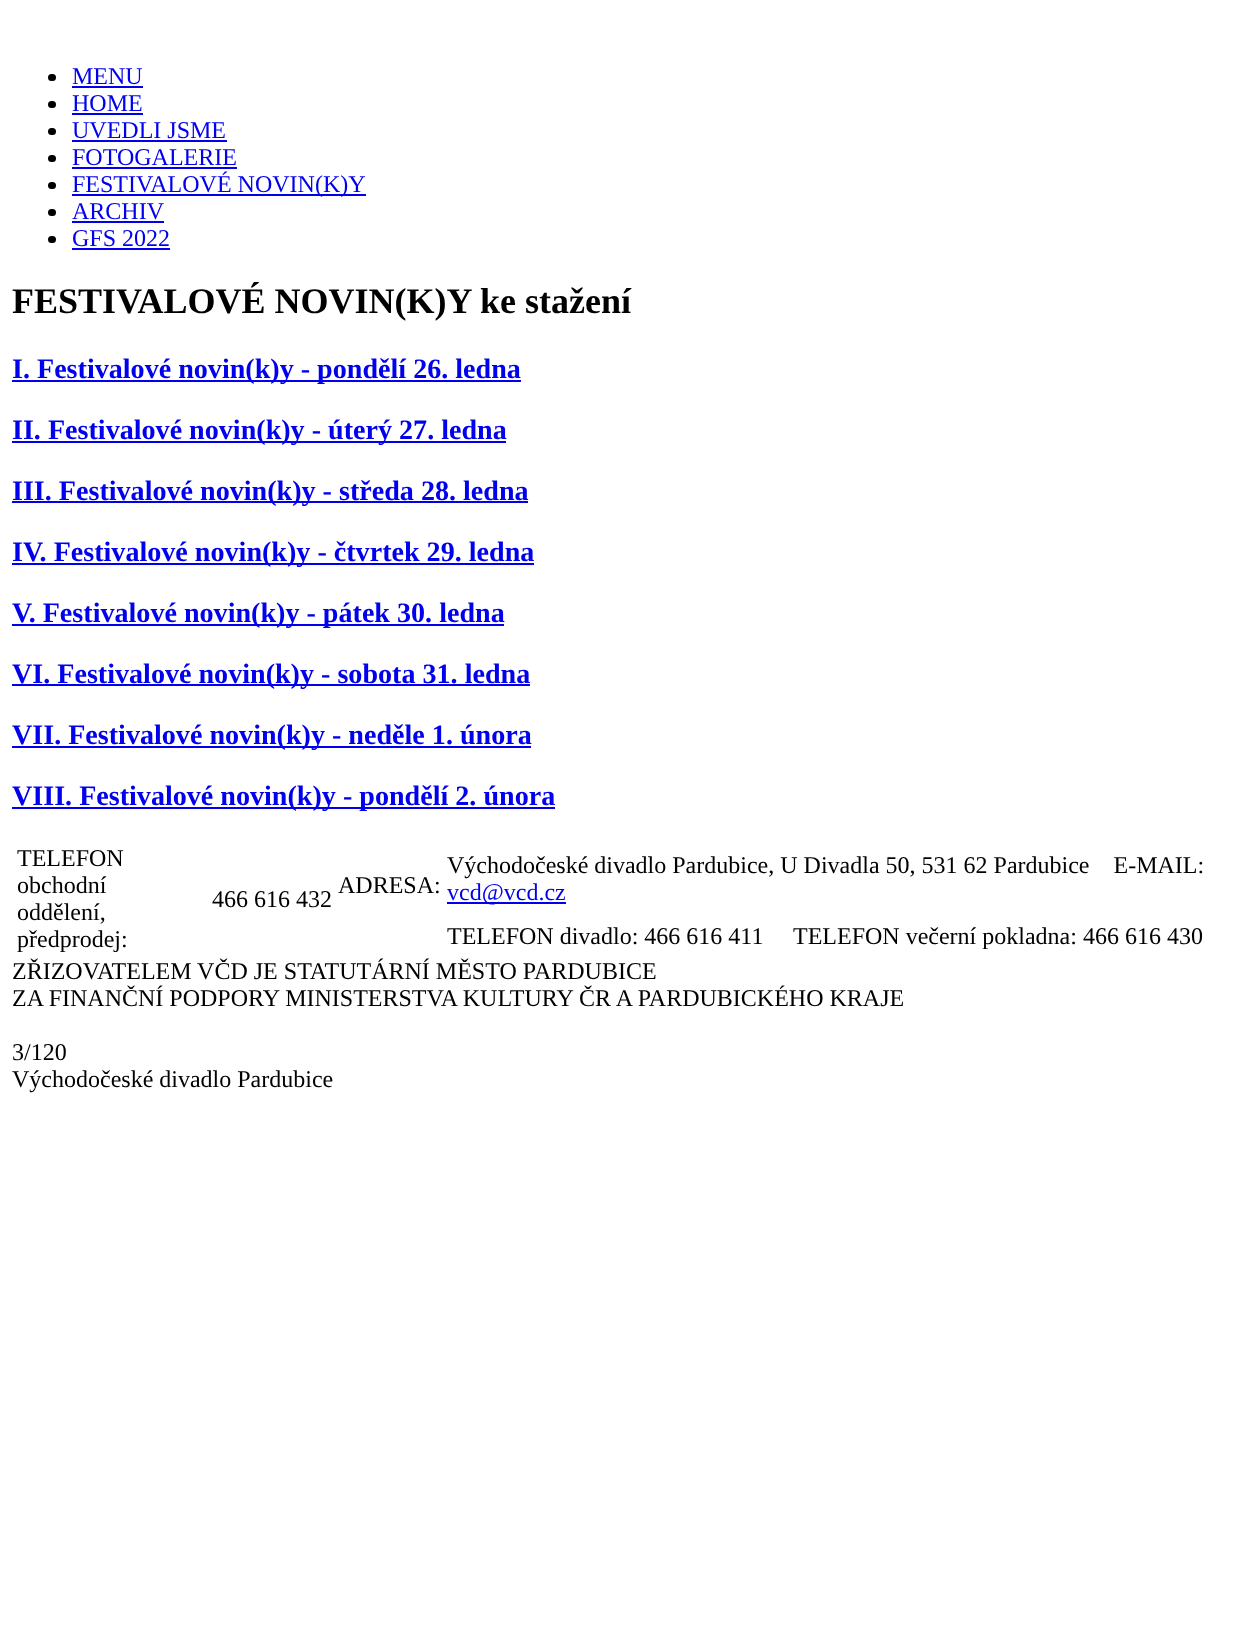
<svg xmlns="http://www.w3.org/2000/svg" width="1233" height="1644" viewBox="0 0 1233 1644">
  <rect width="100%" height="100%" fill="#ffffff"/>
  <rect x="48" y="74" width="8" height="7" rx="3.5" fill="#000000"/>
  <text x="72" y="84" font-family="Liberation Serif" font-size="24" fill="#0000ee">MENU</text>
  <rect x="72" y="86" width="71" height="2" fill="#0000ee"/>
  <rect x="48" y="101" width="8" height="7" rx="3.5" fill="#000000"/>
  <text x="72" y="111" font-family="Liberation Serif" font-size="24" fill="#0000ee">HOME</text>
  <rect x="72" y="113" width="71" height="2" fill="#0000ee"/>
  <rect x="48" y="128" width="8" height="7" rx="3.5" fill="#000000"/>
  <text x="72" y="138" font-family="Liberation Serif" font-size="24" fill="#0000ee">UVEDLI JSME</text>
  <rect x="72" y="140" width="155" height="2" fill="#0000ee"/>
  <rect x="48" y="155" width="8" height="7" rx="3.5" fill="#000000"/>
  <text x="72" y="165" font-family="Liberation Serif" font-size="24" fill="#0000ee">FOTOGALERIE</text>
  <rect x="72" y="167" width="165" height="2" fill="#0000ee"/>
  <rect x="48" y="182" width="8" height="7" rx="3.5" fill="#000000"/>
  <rect x="72" y="194" width="294" height="2" fill="#0000ee"/>
  <text x="72" y="192" font-family="Liberation Serif" font-size="24" fill="#0000ee">FESTIVALOVÉ NOVIN(K)Y</text>
  <rect x="48" y="209" width="8" height="7" rx="3.5" fill="#000000"/>
  <text x="72" y="219" font-family="Liberation Serif" font-size="24" fill="#0000ee">ARCHIV</text>
  <rect x="72" y="221" width="92" height="2" fill="#0000ee"/>
  <rect x="48" y="236" width="8" height="7" rx="3.5" fill="#000000"/>
  <text x="72" y="246" font-family="Liberation Serif" font-size="24" fill="#0000ee">GFS 2022</text>
  <rect x="72" y="248" width="98" height="2" fill="#0000ee"/>
  <text x="12" y="313" font-family="Liberation Serif" font-size="36" font-weight="bold" fill="#000000">FESTIVALOVÉ NOVIN(K)Y ke stažení</text>
  <rect x="12" y="380" width="509" height="2" fill="#0000ee"/>
  <text x="12" y="378" font-family="Liberation Serif" font-size="28.1" font-weight="bold" fill="#0000ee">I. Festivalové novin(k)y - pondělí 26. ledna</text>
  <rect x="12" y="441" width="494" height="2" fill="#0000ee"/>
  <text x="12" y="439" font-family="Liberation Serif" font-size="28.1" font-weight="bold" fill="#0000ee">II. Festivalové novin(k)y - úterý 27. ledna</text>
  <rect x="12" y="501" width="516" height="2" fill="#0000ee"/>
  <text x="12" y="500" font-family="Liberation Serif" font-size="28.1" font-weight="bold" fill="#0000ee">III. Festivalové novin(k)y - středa 28. ledna</text>
  <rect x="12" y="563" width="522" height="2" fill="#0000ee"/>
  <text x="12" y="561" font-family="Liberation Serif" font-size="28.1" font-weight="bold" fill="#0000ee">IV. Festivalové novin(k)y - čtvrtek 29. ledna</text>
  <rect x="12" y="624" width="492" height="2" fill="#0000ee"/>
  <text x="12" y="622" font-family="Liberation Serif" font-size="28.1" font-weight="bold" fill="#0000ee">V. Festivalové novin(k)y - pátek 30. ledna</text>
  <rect x="12" y="684" width="518" height="2" fill="#0000ee"/>
  <text x="12" y="683" font-family="Liberation Serif" font-size="28.1" font-weight="bold" fill="#0000ee">VI. Festivalové novin(k)y - sobota 31. ledna</text>
  <rect x="12" y="746" width="519" height="2" fill="#0000ee"/>
  <text x="12" y="744" font-family="Liberation Serif" font-size="28.1" font-weight="bold" fill="#0000ee">VII. Festivalové novin(k)y - neděle 1. února</text>
  <rect x="12" y="807" width="543" height="2" fill="#0000ee"/>
  <text x="12" y="805" font-family="Liberation Serif" font-size="28.1" font-weight="bold" fill="#0000ee">VIII. Festivalové novin(k)y - pondělí 2. února</text>
  <text x="17" y="866" font-family="Liberation Serif" font-size="24" fill="#000000">TELEFON</text>
  <text x="17" y="893" font-family="Liberation Serif" font-size="24" fill="#000000">obchodní</text>
  <text x="17" y="920" font-family="Liberation Serif" font-size="24" fill="#000000">oddělení,</text>
  <text x="17" y="947" font-family="Liberation Serif" font-size="24" fill="#000000">předprodej:</text>
  <text x="338" y="893" font-family="Liberation Serif" font-size="24" fill="#000000">ADRESA:</text>
  <text x="447" y="873" font-family="Liberation Serif" font-size="24" fill="#000000" xml:space="preserve">Východočeské divadlo Pardubice, U Divadla 50, 531 62 Pardubice    E-MAIL:</text>
  <rect x="447" y="902" width="119" height="2" fill="#0000ee"/>
  <text x="447" y="900" font-family="Liberation Serif" font-size="24" fill="#0000ee">vcd@vcd.cz</text>
  <text x="212" y="907" font-family="Liberation Serif" font-size="24" fill="#000000">466 616 432</text>
  <text x="447" y="944" font-family="Liberation Serif" font-size="24" fill="#000000" xml:space="preserve">TELEFON divadlo: 466 616 411     TELEFON večerní pokladna: 466 616 430</text>
  <text x="12" y="979" font-family="Liberation Serif" font-size="24" fill="#000000">ZŘIZOVATELEM VČD JE STATUTÁRNÍ MĚSTO PARDUBICE</text>
  <text x="12" y="1006" font-family="Liberation Serif" font-size="24" fill="#000000">ZA FINANČNÍ PODPORY MINISTERSTVA KULTURY ČR A PARDUBICKÉHO KRAJE</text>
  <text x="12" y="1060" font-family="Liberation Serif" font-size="24" fill="#000000">3/120</text>
  <text x="12" y="1087" font-family="Liberation Serif" font-size="24" fill="#000000">Východočeské divadlo Pardubice</text>
</svg>
